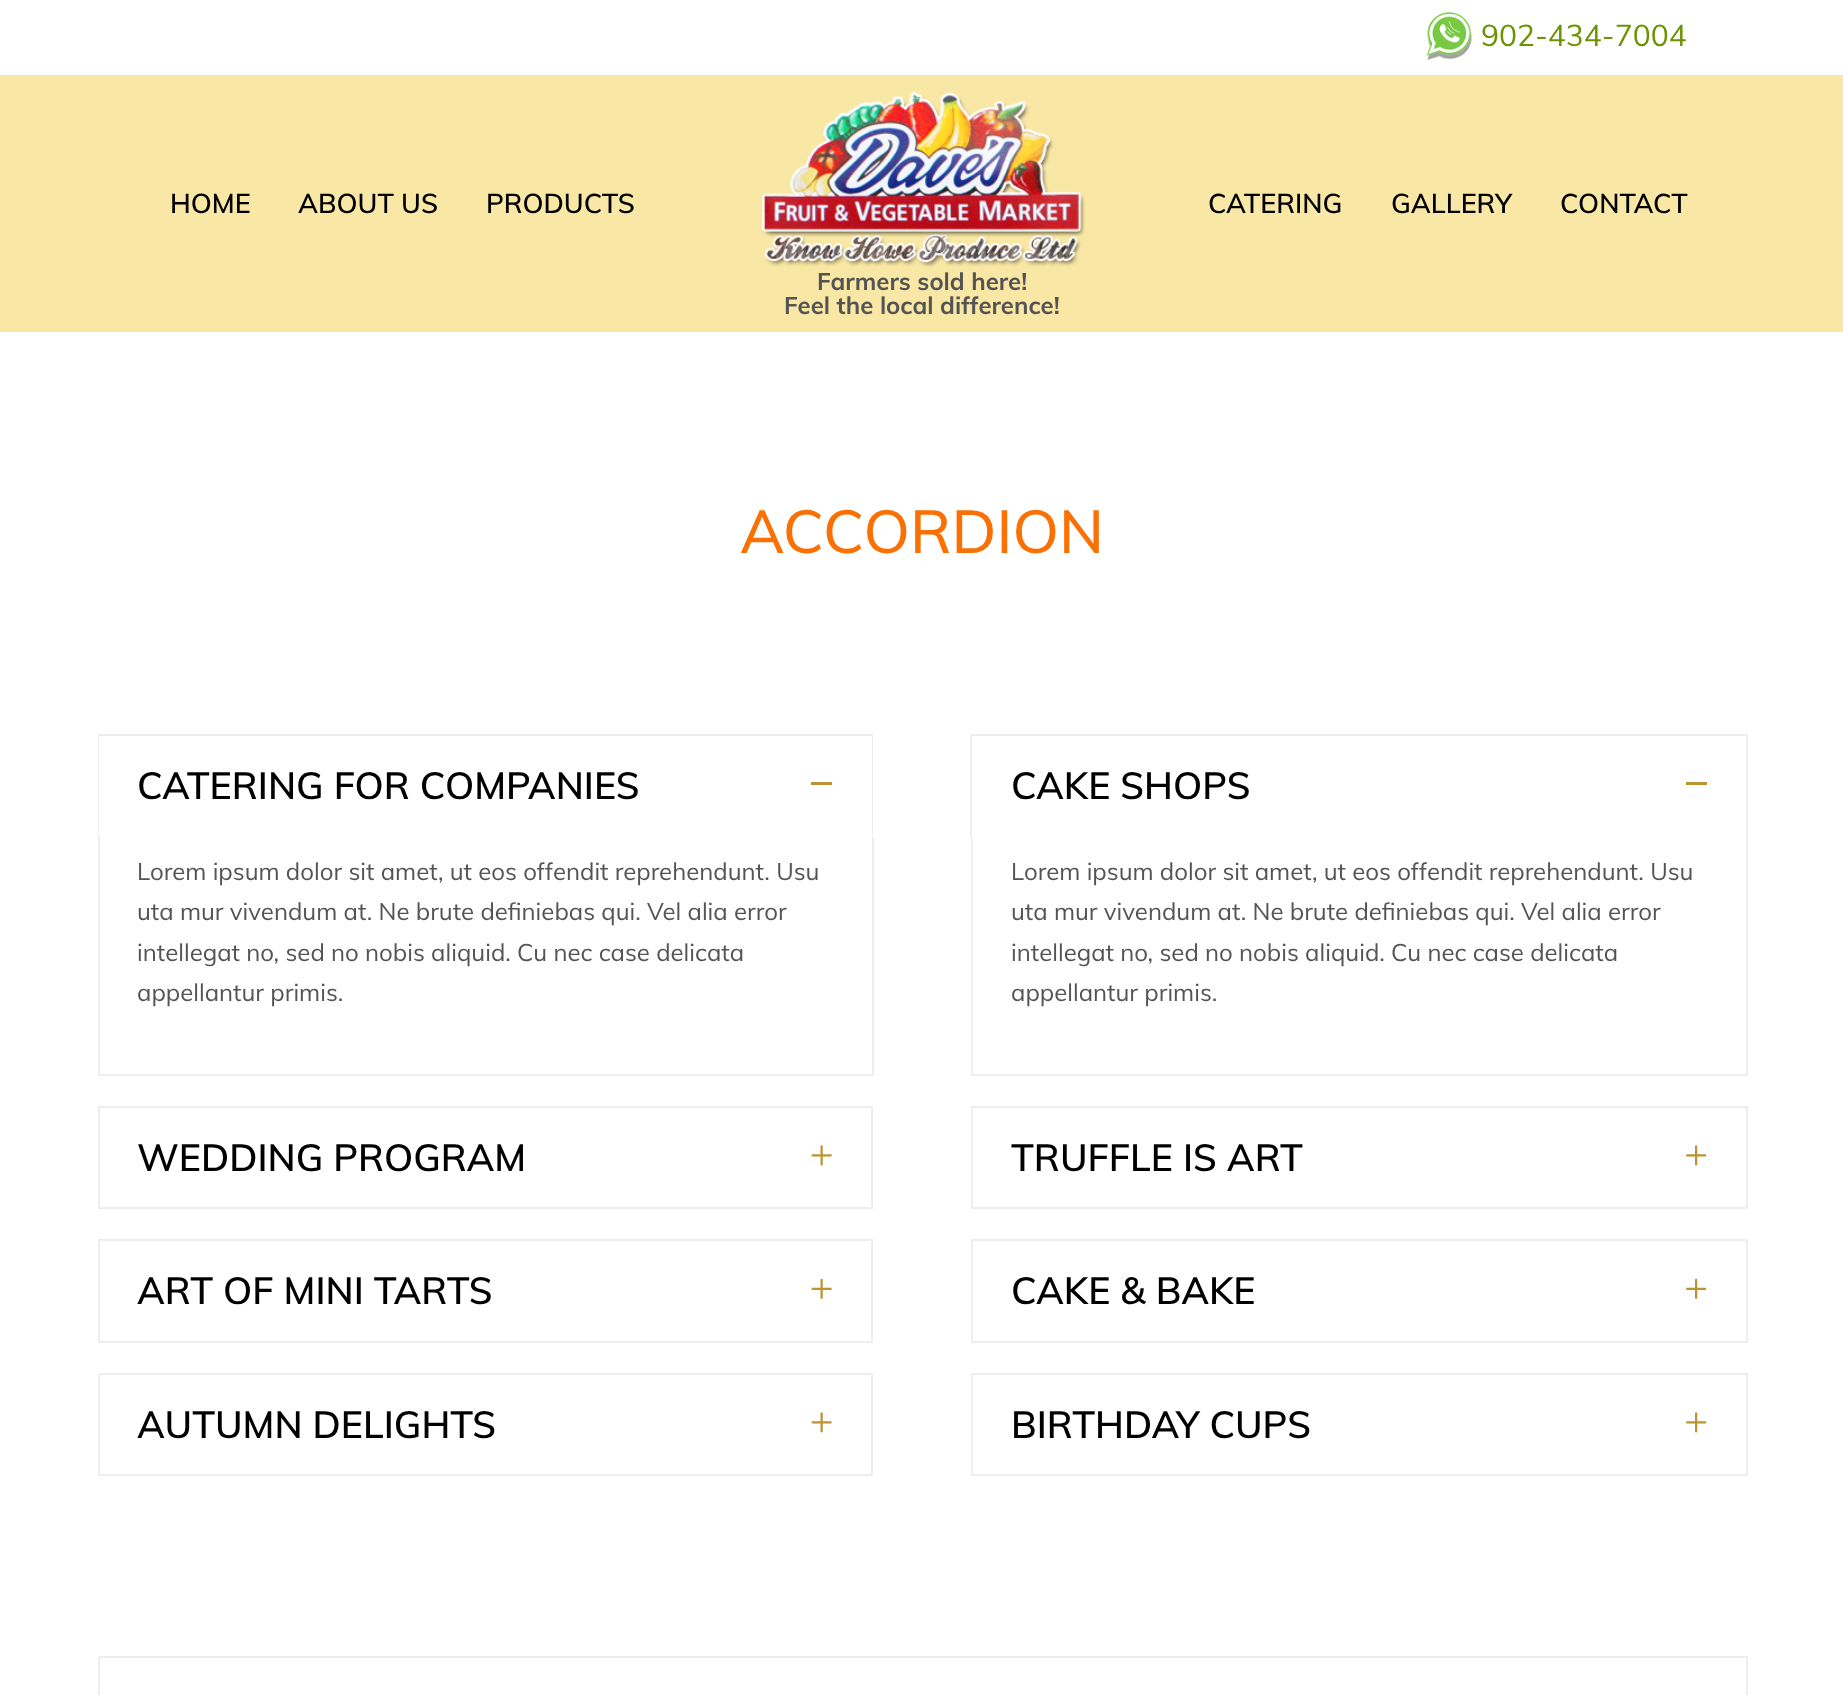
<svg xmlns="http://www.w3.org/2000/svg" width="1843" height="1695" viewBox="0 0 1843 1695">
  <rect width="100%" height="100%" fill="#ffffff"/>
  <image x="1426" y="12" width="46" height="48" href="img1.png"/>
  <text x="1481" y="46" font-family="Muli" font-size="30" fill="#6d9302">902-434-7004</text>
  <rect x="0" y="75" width="1843" height="257" fill="#f9e8a5"/>
  <text x="170" y="213" font-family="Muli" font-size="27" font-weight="600" fill="#000000">HOME</text>
  <text x="298" y="213" font-family="Muli" font-size="27" font-weight="600" fill="#000000">ABOUT US</text>
  <text x="486" y="213" font-family="Muli" font-size="27" font-weight="600" fill="#000000">PRODUCTS</text>
  <text x="1208" y="213" font-family="Muli" font-size="27" font-weight="600" fill="#000000">CATERING</text>
  <text x="1391" y="213" font-family="Muli" font-size="27" font-weight="600" fill="#000000">GALLERY</text>
  <text x="1560" y="213" font-family="Muli" font-size="27" font-weight="600" fill="#000000">CONTACT</text>
  <image x="762" y="91" width="323" height="176" href="img2.png"/>
  <text x="817" y="290" font-family="Muli" font-size="24" font-weight="bold" fill="#545454">Farmers sold here!</text>
  <text x="784" y="314" font-family="Muli" font-size="24" font-weight="bold" fill="#545454">Feel the local difference!</text>
  <text x="740" y="553" font-family="Muli" font-size="60" font-weight="500" fill="#fa7003">ACCORDION</text>
  <rect x="98" y="734" width="775" height="2" fill="#eeeeee"/>
  <path d="M873 734V837L872 836V735Z" fill="#eeeeee"/>
  <path d="M98 837V734L99 735V836Z" fill="#eeeeee"/>
  <text x="137" y="799" font-family="Muli" font-size="37.5" font-weight="600" fill="#000000">CATERING FOR COMPANIES</text>
  <rect x="811" y="782" width="21" height="3" fill="#bc9331"/>
  <rect x="872" y="837" width="2" height="239" fill="#eeeeee"/>
  <rect x="98" y="1074" width="775" height="2" fill="#eeeeee"/>
  <rect x="98" y="837" width="2" height="239" fill="#eeeeee"/>
  <text x="137" y="880" font-family="Muli" font-size="24" fill="#545454">Lorem ipsum dolor sit amet, ut eos offendit reprehendunt. Usu</text>
  <text x="137" y="920" font-family="Muli" font-size="24" fill="#545454">uta mur vivendum at. Ne brute definiebas qui. Vel alia error</text>
  <text x="137" y="961" font-family="Muli" font-size="24" fill="#545454">intellegat no, sed no nobis aliquid. Cu nec case delicata</text>
  <text x="137" y="1001" font-family="Muli" font-size="24" fill="#545454">appellantur primis.</text>
  <rect x="99" y="1107" width="773" height="101" fill="none" stroke="#eeeeee" stroke-width="2"/>
  <text x="137" y="1171" font-family="Muli" font-size="37.5" font-weight="600" fill="#000000">WEDDING PROGRAM</text>
  <image x="811" y="1145" width="21" height="21" href="img3.png"/>
  <rect x="99" y="1240" width="773" height="102" fill="none" stroke="#eeeeee" stroke-width="2"/>
  <text x="137" y="1304" font-family="Muli" font-size="37.5" font-weight="600" fill="#000000">ART OF MINI TARTS</text>
  <image x="811" y="1278" width="21" height="21" href="img4.png"/>
  <rect x="99" y="1374" width="773" height="101" fill="none" stroke="#eeeeee" stroke-width="2"/>
  <text x="137" y="1438" font-family="Muli" font-size="37.5" font-weight="600" fill="#000000">AUTUMN DELIGHTS</text>
  <image x="811" y="1412" width="21" height="21" href="img3.png"/>
  <rect x="971" y="734" width="777" height="2" fill="#eeeeee"/>
  <path d="M1748 734V837L1746 836V735Z" fill="#eeeeee"/>
  <path d="M970 837V734L972 735V836Z" fill="#eeeeee"/>
  <text x="1011" y="799" font-family="Muli" font-size="37.5" font-weight="600" fill="#000000">CAKE SHOPS</text>
  <rect x="1686" y="782" width="21" height="3" fill="#bc9331"/>
  <rect x="1746" y="837" width="2" height="239" fill="#eeeeee"/>
  <rect x="971" y="1074" width="777" height="2" fill="#eeeeee"/>
  <rect x="971" y="837" width="2" height="239" fill="#eeeeee"/>
  <text x="1011" y="880" font-family="Muli" font-size="24" fill="#545454">Lorem ipsum dolor sit amet, ut eos offendit reprehendunt. Usu</text>
  <text x="1011" y="920" font-family="Muli" font-size="24" fill="#545454">uta mur vivendum at. Ne brute definiebas qui. Vel alia error</text>
  <text x="1011" y="961" font-family="Muli" font-size="24" fill="#545454">intellegat no, sed no nobis aliquid. Cu nec case delicata</text>
  <text x="1011" y="1001" font-family="Muli" font-size="24" fill="#545454">appellantur primis.</text>
  <rect x="972" y="1107" width="775" height="101" fill="none" stroke="#eeeeee" stroke-width="2"/>
  <text x="1011" y="1171" font-family="Muli" font-size="37.5" font-weight="600" fill="#000000">TRUFFLE IS ART</text>
  <image x="1686" y="1145" width="21" height="21" href="img5.png"/>
  <rect x="972" y="1240" width="775" height="102" fill="none" stroke="#eeeeee" stroke-width="2"/>
  <text x="1011" y="1304" font-family="Muli" font-size="37.5" font-weight="600" fill="#000000">CAKE &amp; BAKE</text>
  <image x="1686" y="1278" width="21" height="21" href="img6.png"/>
  <rect x="972" y="1374" width="775" height="101" fill="none" stroke="#eeeeee" stroke-width="2"/>
  <text x="1011" y="1438" font-family="Muli" font-size="37.5" font-weight="600" fill="#000000">BIRTHDAY CUPS</text>
  <image x="1686" y="1412" width="21" height="21" href="img5.png"/>
  <rect x="99" y="1657" width="1648" height="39" fill="none" stroke="#eeeeee" stroke-width="2"/>
</svg>
